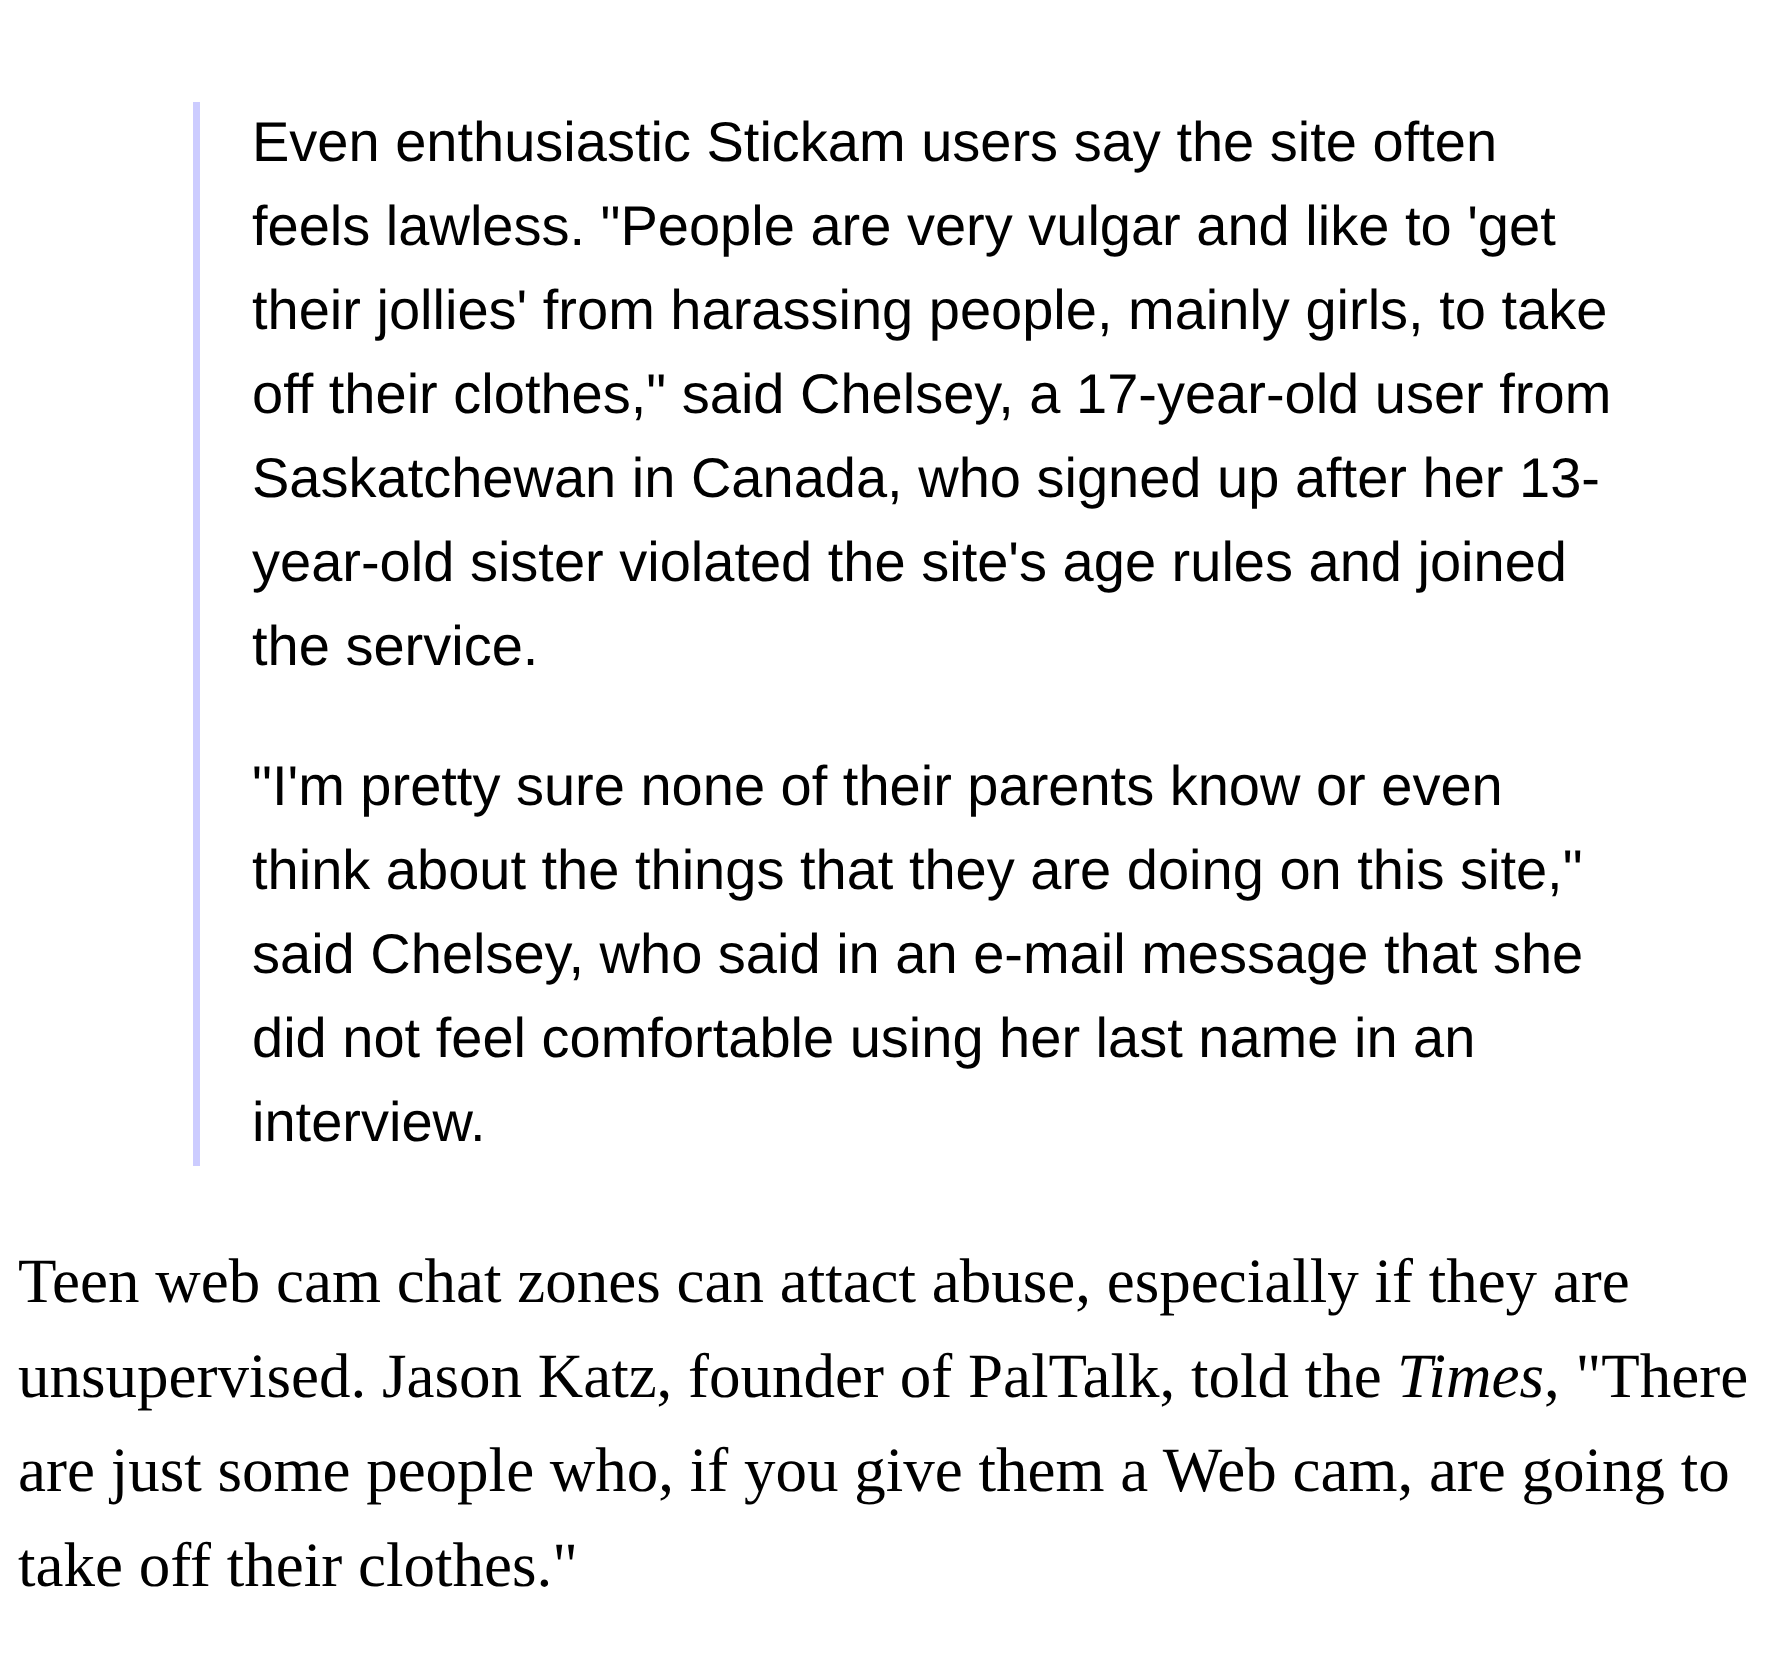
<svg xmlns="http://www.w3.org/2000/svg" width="1773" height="1680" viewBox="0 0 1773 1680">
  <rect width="100%" height="100%" fill="#ffffff"/>
  <rect x="193" y="102" width="7" height="1064" fill="#ccccff"/>
  <text x="252" y="161" font-family="Liberation Sans" font-size="56" fill="#000000">Even enthusiastic Stickam users say the site often</text>
  <text x="252" y="245" font-family="Liberation Sans" font-size="56" fill="#000000">feels lawless. "People are very vulgar and like to 'get</text>
  <text x="252" y="329" font-family="Liberation Sans" font-size="56" fill="#000000">their jollies' from harassing people, mainly girls, to take</text>
  <text x="252" y="413" font-family="Liberation Sans" font-size="56" fill="#000000">off their clothes," said Chelsey, a 17-year-old user from</text>
  <text x="252" y="497" font-family="Liberation Sans" font-size="56" fill="#000000">Saskatchewan in Canada, who signed up after her 13-</text>
  <text x="252" y="581" font-family="Liberation Sans" font-size="56" fill="#000000">year-old sister violated the site's age rules and joined</text>
  <text x="252" y="665" font-family="Liberation Sans" font-size="56" fill="#000000">the service.</text>
  <text x="252" y="805" font-family="Liberation Sans" font-size="56" fill="#000000">"I'm pretty sure none of their parents know or even</text>
  <text x="252" y="889" font-family="Liberation Sans" font-size="56" fill="#000000">think about the things that they are doing on this site,"</text>
  <text x="252" y="973" font-family="Liberation Sans" font-size="56" fill="#000000">said Chelsey, who said in an e-mail message that she</text>
  <text x="252" y="1057" font-family="Liberation Sans" font-size="56" fill="#000000">did not feel comfortable using her last name in an</text>
  <text x="252" y="1141" font-family="Liberation Sans" font-size="56" fill="#000000">interview.</text>
  <text x="18" y="1302" font-family="Liberation Serif" font-size="63" fill="#000000">Teen web cam chat zones can attact abuse, especially if they are</text>
  <text x="18" y="1397" font-family="Liberation Serif" font-size="63" fill="#000000">unsupervised. Jason Katz, founder of PalTalk, told the</text>
  <text x="1397" y="1397" font-family="Liberation Serif" font-size="63" font-style="italic" fill="#000000">Times</text>
  <text x="1544" y="1397" font-family="Liberation Serif" font-size="63" fill="#000000">, "There</text>
  <text x="18" y="1491" font-family="Liberation Serif" font-size="63" fill="#000000">are just some people who, if you give them a Web cam, are going to</text>
  <text x="18" y="1586" font-family="Liberation Serif" font-size="63" fill="#000000">take off their clothes."</text>
</svg>
